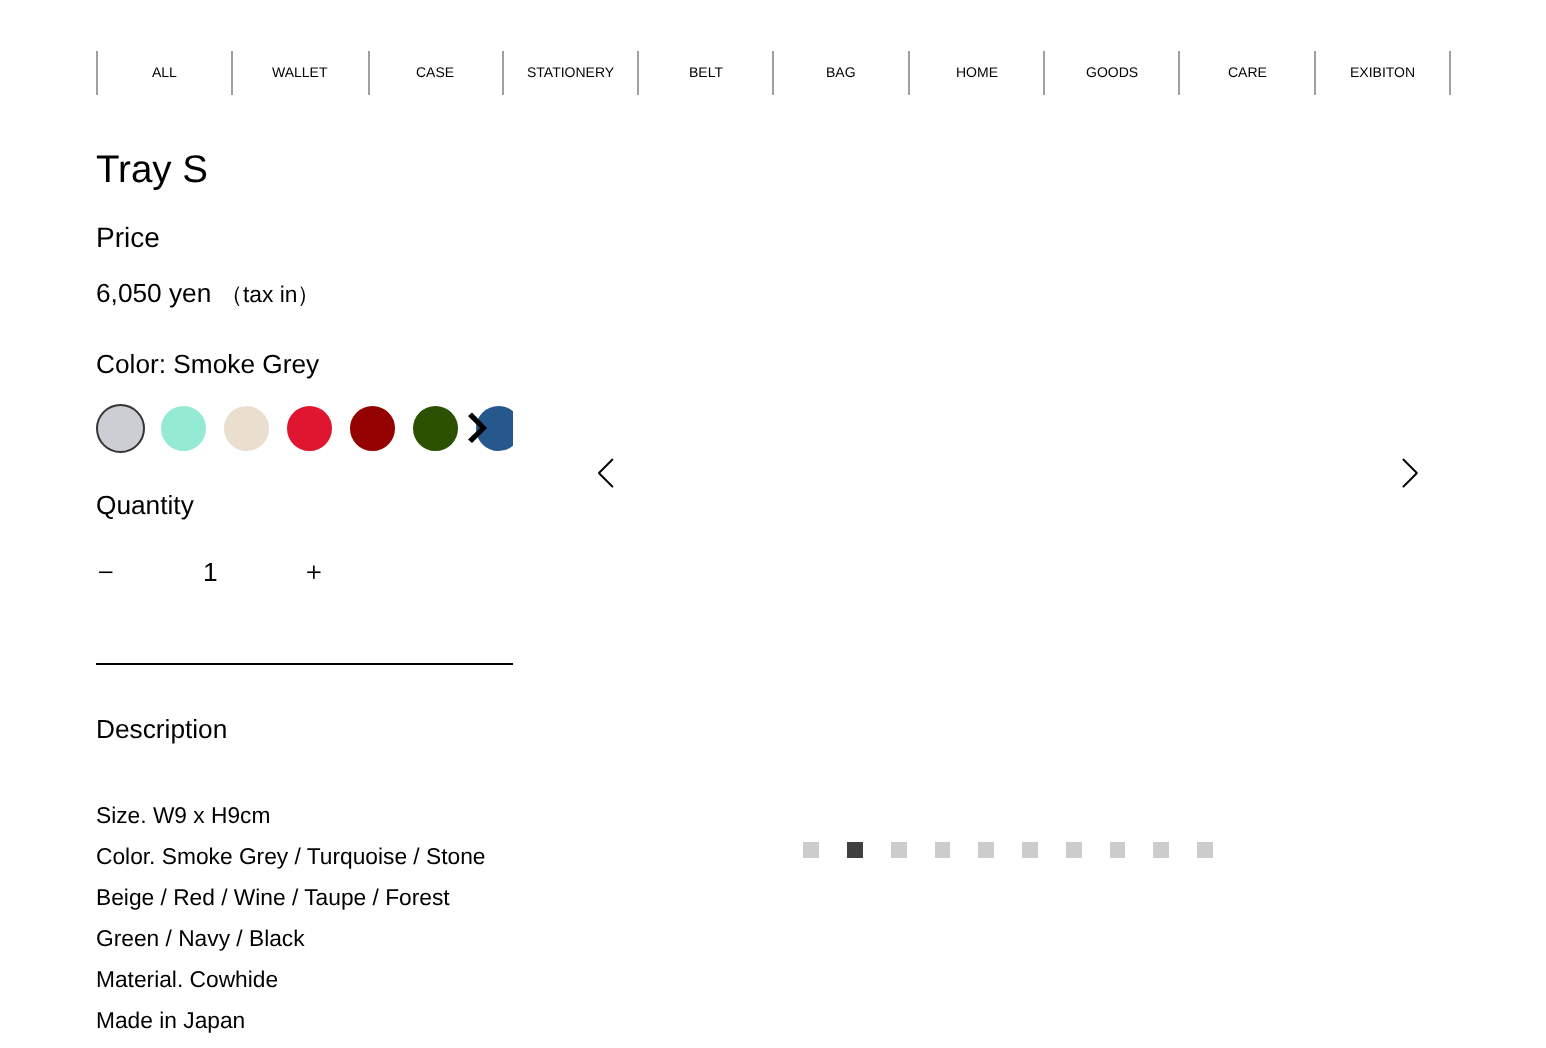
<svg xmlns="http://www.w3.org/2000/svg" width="1546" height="1048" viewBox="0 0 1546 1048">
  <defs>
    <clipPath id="clip1"><rect x="96" y="397" width="417" height="63"/></clipPath>
  </defs>
  <rect width="100%" height="100%" fill="#ffffff"/>
  <rect x="1449" y="51" width="2" height="44" fill="#9fa0a0"/>
  <rect x="96" y="51" width="2" height="44" fill="#9fa0a0"/>
  <text x="152" y="77" font-family="Liberation Sans" font-size="14" fill="#000000">ALL</text>
  <rect x="231" y="51" width="2" height="44" fill="#9fa0a0"/>
  <text x="272" y="77" font-family="Liberation Sans" font-size="14" fill="#000000">WALLET</text>
  <rect x="368" y="51" width="2" height="44" fill="#9fa0a0"/>
  <text x="416" y="77" font-family="Liberation Sans" font-size="14" fill="#000000">CASE</text>
  <rect x="502" y="51" width="2" height="44" fill="#9fa0a0"/>
  <text x="527" y="77" font-family="Liberation Sans" font-size="14" fill="#000000">STATIONERY</text>
  <rect x="637" y="51" width="2" height="44" fill="#9fa0a0"/>
  <text x="689" y="77" font-family="Liberation Sans" font-size="14" fill="#000000">BELT</text>
  <rect x="772" y="51" width="2" height="44" fill="#9fa0a0"/>
  <text x="826" y="77" font-family="Liberation Sans" font-size="14" fill="#000000">BAG</text>
  <rect x="908" y="51" width="2" height="44" fill="#9fa0a0"/>
  <text x="956" y="77" font-family="Liberation Sans" font-size="14" fill="#000000">HOME</text>
  <rect x="1043" y="51" width="2" height="44" fill="#9fa0a0"/>
  <text x="1086" y="77" font-family="Liberation Sans" font-size="14" fill="#000000">GOODS</text>
  <rect x="1178" y="51" width="2" height="44" fill="#9fa0a0"/>
  <text x="1228" y="77" font-family="Liberation Sans" font-size="14" fill="#000000">CARE</text>
  <rect x="1314" y="51" width="2" height="44" fill="#9fa0a0"/>
  <text x="1350" y="77" font-family="Liberation Sans" font-size="14" fill="#000000">EXIBITON</text>
  <text x="96" y="182" font-family="Liberation Sans" font-size="38.5" fill="#000000">Tray S</text>
  <text x="96" y="247" font-family="Liberation Sans" font-size="28" fill="#000000">Price</text>
  <text x="96" y="302" font-family="Liberation Sans" font-size="26.25" fill="#000000">6,050 yen</text>
  <text x="220" y="302" font-family="WenQuanYi Zen Hei" font-size="22.75" font-weight="500" fill="#000000">（</text>
  <text x="243" y="302" font-family="Liberation Sans" font-size="22.75" fill="#000000">tax in</text>
  <text x="297" y="302" font-family="WenQuanYi Zen Hei" font-size="22.75" font-weight="500" fill="#000000">）</text>
  <text x="96" y="373" font-family="Liberation Sans" font-size="26.25" fill="#000000">Color: Smoke Grey</text>
  <circle cx="120.5" cy="428.5" r="23.5" fill="#ccced3" stroke="#343434" stroke-width="2"/>
  <circle cx="183.5" cy="428.5" r="23.5" fill="#94ead3" stroke="#ffffff" stroke-width="2"/>
  <circle cx="246.5" cy="428.5" r="23.5" fill="#eadece" stroke="#ffffff" stroke-width="2"/>
  <circle cx="309.5" cy="428.5" r="23.5" fill="#e01630" stroke="#ffffff" stroke-width="2"/>
  <circle cx="372.5" cy="428.5" r="23.5" fill="#940101" stroke="#ffffff" stroke-width="2"/>
  <circle cx="435.5" cy="428.5" r="23.5" fill="#2c5101" stroke="#ffffff" stroke-width="2"/>
  <g clip-path="url(#clip1)">
    <circle cx="498.5" cy="428.5" r="23.5" fill="#26578d" stroke="#ffffff" stroke-width="2"/>
  </g>
  <path d="M468 439.5L480 428L468 416L472 412.5L487 428L472 443Z" fill="#000000"/>
  <text x="96" y="514" font-family="Liberation Sans" font-size="26.25" fill="#000000">Quantity</text>
  <image x="98" y="571" width="15" height="3" href="img1.png"/>
  <text x="203" y="581" font-family="Liberation Sans" font-size="26.25" fill="#000000">1</text>
  <image x="307" y="565" width="14" height="15" href="img2.png"/>
  <rect x="96" y="663" width="417" height="2" fill="#000000"/>
  <text x="96" y="738" font-family="Liberation Sans" font-size="26.25" fill="#000000">Description</text>
  <text x="96" y="823" font-family="Liberation Sans" font-size="22.75" fill="#000000">Size. W9 x H9cm</text>
  <text x="96" y="864" font-family="Liberation Sans" font-size="22.75" fill="#000000">Color. Smoke Grey / Turquoise / Stone</text>
  <text x="96" y="905" font-family="Liberation Sans" font-size="22.75" fill="#000000">Beige / Red / Wine / Taupe / Forest</text>
  <text x="96" y="946" font-family="Liberation Sans" font-size="22.75" fill="#000000">Green / Navy / Black</text>
  <text x="96" y="987" font-family="Liberation Sans" font-size="22.75" fill="#000000">Material. Cowhide</text>
  <text x="96" y="1028" font-family="Liberation Sans" font-size="22.75" fill="#000000">Made in Japan</text>
  <image x="598" y="458" width="16" height="30" href="img3.png"/>
  <image x="1402" y="458" width="16" height="30" href="img4.png"/>
  <rect x="803" y="842" width="16" height="16" fill="#cccccc"/>
  <rect x="847" y="842" width="16" height="16" fill="#404040"/>
  <rect x="891" y="842" width="16" height="16" fill="#cccccc"/>
  <rect x="935" y="842" width="15" height="16" fill="#cccccc"/>
  <rect x="978" y="842" width="16" height="16" fill="#cccccc"/>
  <rect x="1022" y="842" width="16" height="16" fill="#cccccc"/>
  <rect x="1066" y="842" width="16" height="16" fill="#cccccc"/>
  <rect x="1110" y="842" width="15" height="16" fill="#cccccc"/>
  <rect x="1153" y="842" width="16" height="16" fill="#cccccc"/>
  <rect x="1197" y="842" width="16" height="16" fill="#cccccc"/>
</svg>
